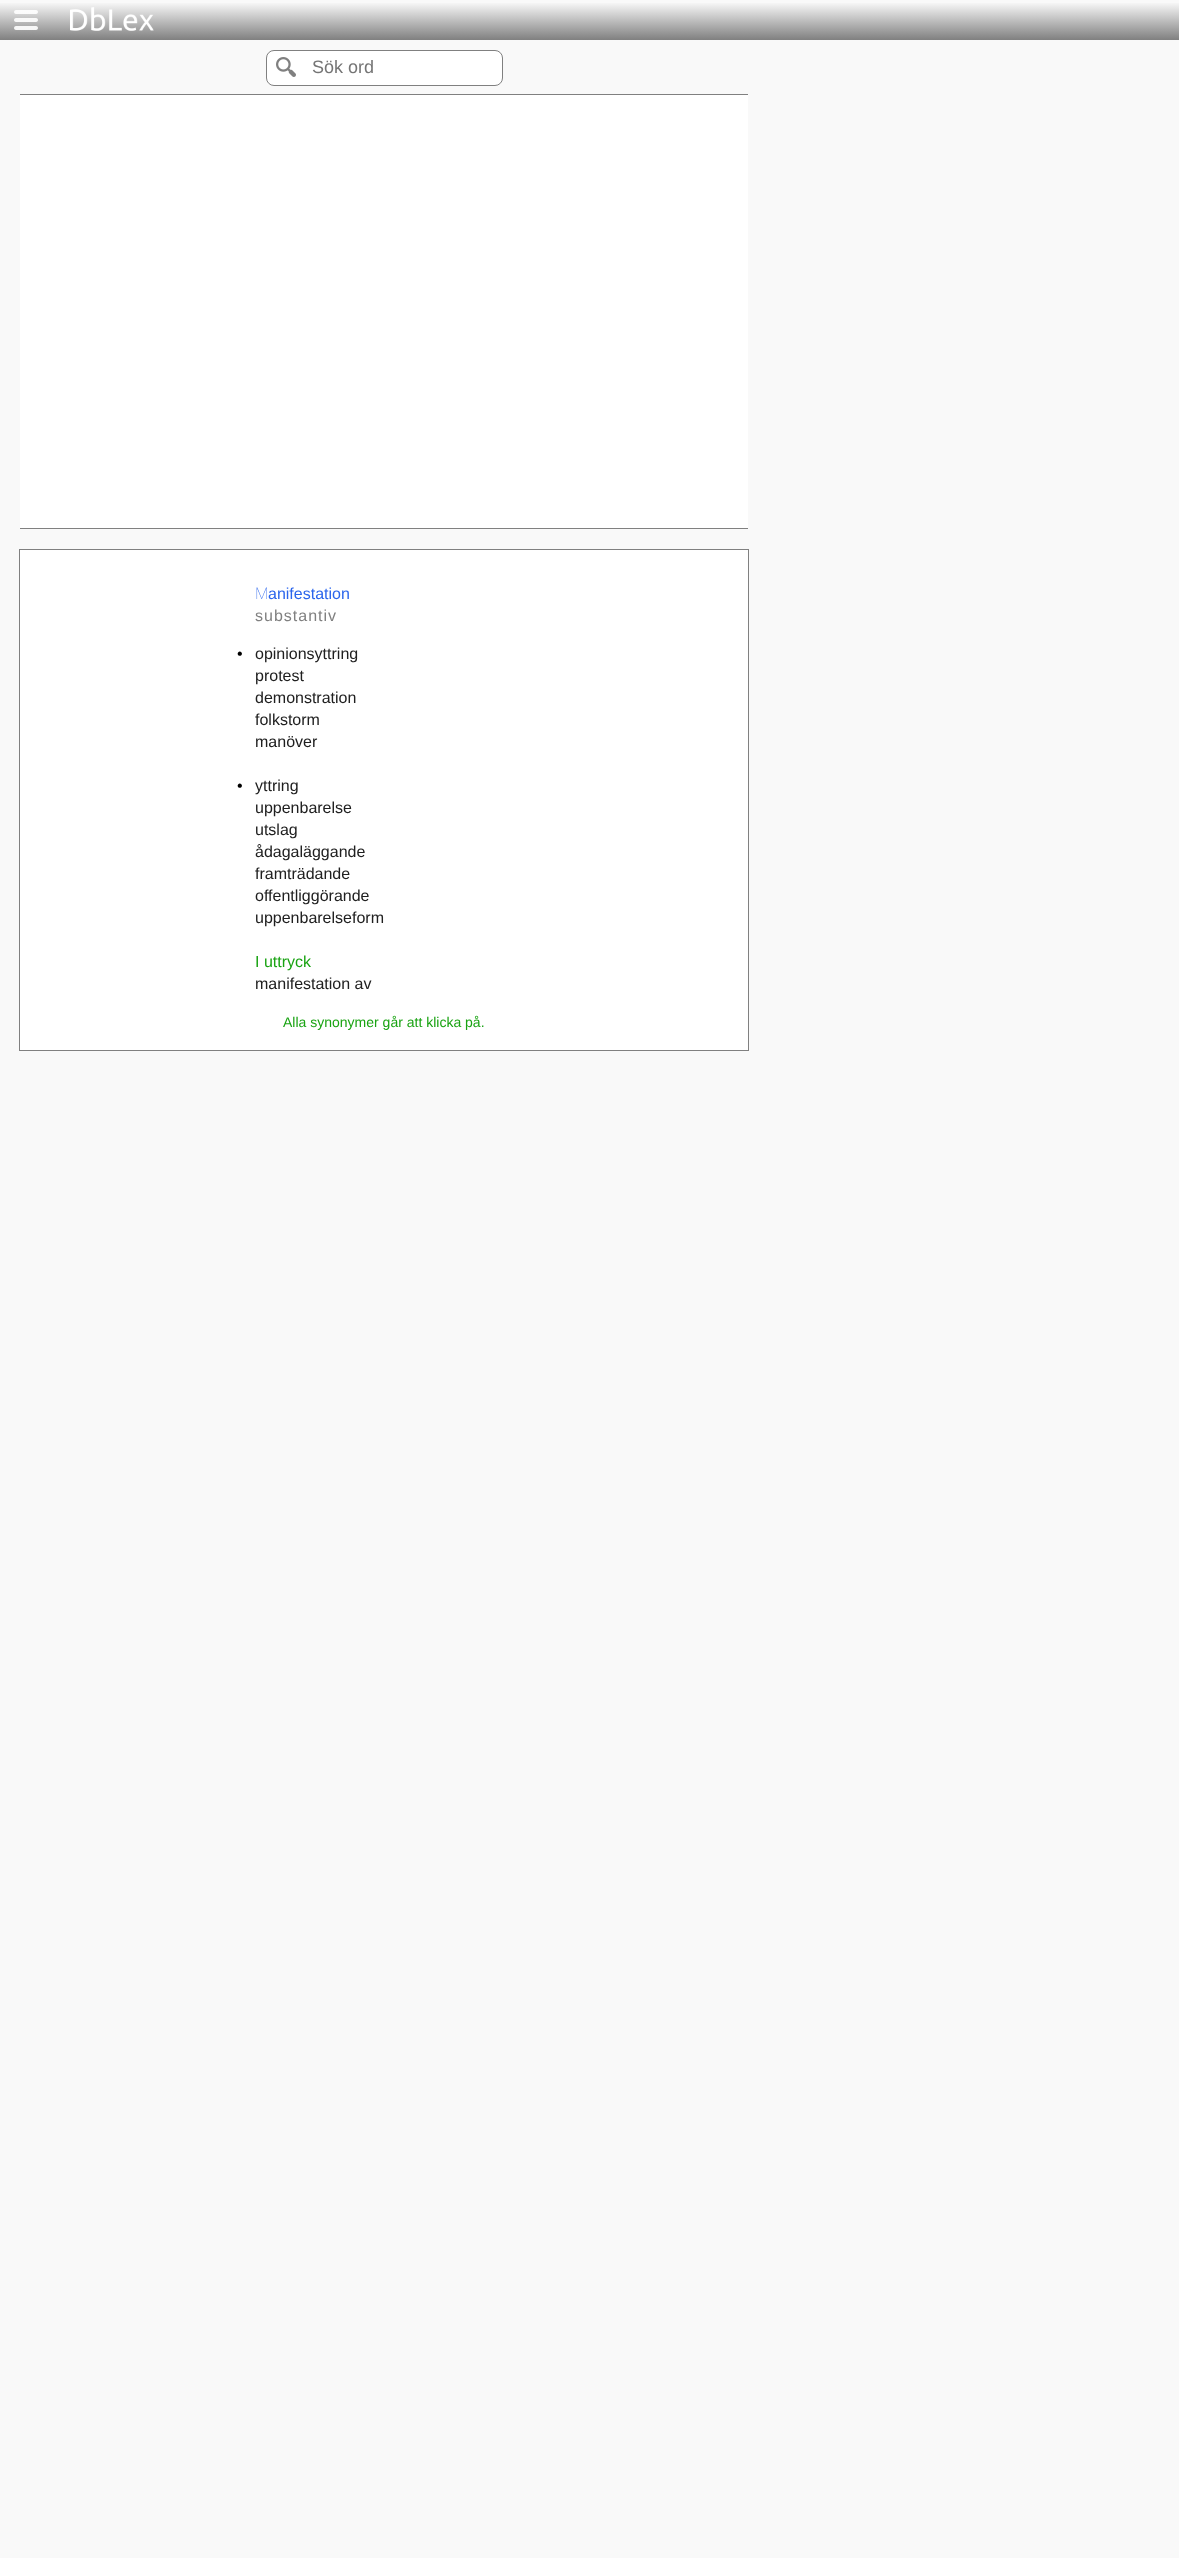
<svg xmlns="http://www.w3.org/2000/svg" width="1179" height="2558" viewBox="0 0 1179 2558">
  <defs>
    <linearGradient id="g1" gradientUnits="userSpaceOnUse" x1="0" y1="0" x2="0" y2="40"><stop offset="0.05" stop-color="#f9f9f9"/><stop offset="1" stop-color="#808080"/></linearGradient>
  </defs>
  <rect width="100%" height="100%" fill="#f9f9f9"/>
  <rect x="0" y="3" width="1179" height="37" fill="url(#g1)"/>
  <image x="14" y="10" width="24" height="20" href="img1.png"/>
  <image x="70" y="7" width="84" height="24" href="img2.png"/>
  <rect x="266.5" y="50.5" width="236" height="35" rx="7.5" fill="#ffffff" stroke="#808080"/>
  <image x="276" y="57" width="20" height="20" href="img3.png"/>
  <text x="312" y="73" font-family="Liberation Sans" font-size="18" fill="#757575">Sök ord</text>
  <rect x="20" y="95" width="728" height="433" fill="#ffffff"/>
  <rect x="20" y="94" width="728" height="1" fill="#808080"/>
  <rect x="20" y="528" width="728" height="1" fill="#808080"/>
  <rect x="19.5" y="549.5" width="729" height="501" fill="#ffffff" stroke="#808080"/>
  <text x="255" y="599" font-family="Noto Sans" font-size="16" font-weight="100" fill="#2b65ec">M</text>
  <text x="268" y="599" font-family="Liberation Sans" font-size="16" fill="#2b65ec">anifestation</text>
  <text x="255" y="621" font-family="Liberation Sans" font-size="16" letter-spacing="1" fill="#808080">substantiv</text>
  <text x="237" y="659" font-family="Liberation Sans" font-size="16" fill="#000000">•</text>
  <text x="255" y="659" font-family="Liberation Sans" font-size="16" fill="#202020">opinionsyttring</text>
  <text x="255" y="681" font-family="Liberation Sans" font-size="16" fill="#202020">protest</text>
  <text x="255" y="703" font-family="Liberation Sans" font-size="16" fill="#202020">demonstration</text>
  <text x="255" y="725" font-family="Liberation Sans" font-size="16" fill="#202020">folkstorm</text>
  <text x="255" y="747" font-family="Liberation Sans" font-size="16" fill="#202020">manöver</text>
  <text x="237" y="791" font-family="Liberation Sans" font-size="16" fill="#000000">•</text>
  <text x="255" y="791" font-family="Liberation Sans" font-size="16" fill="#202020">yttring</text>
  <text x="255" y="813" font-family="Liberation Sans" font-size="16" fill="#202020">uppenbarelse</text>
  <text x="255" y="835" font-family="Liberation Sans" font-size="16" fill="#202020">utslag</text>
  <text x="255" y="857" font-family="Liberation Sans" font-size="16" fill="#202020">ådagaläggande</text>
  <text x="255" y="879" font-family="Liberation Sans" font-size="16" fill="#202020">framträdande</text>
  <text x="255" y="901" font-family="Liberation Sans" font-size="16" fill="#202020">offentliggörande</text>
  <text x="255" y="923" font-family="Liberation Sans" font-size="16" fill="#202020">uppenbarelseform</text>
  <text x="255" y="967" font-family="Liberation Sans" font-size="16" fill="#19a312">I uttryck</text>
  <text x="255" y="989" font-family="Liberation Sans" font-size="16" fill="#202020">manifestation av</text>
  <text x="283" y="1027" font-family="Liberation Sans" font-size="14" fill="#19a312">Alla synonymer går att klicka på.</text>
</svg>
